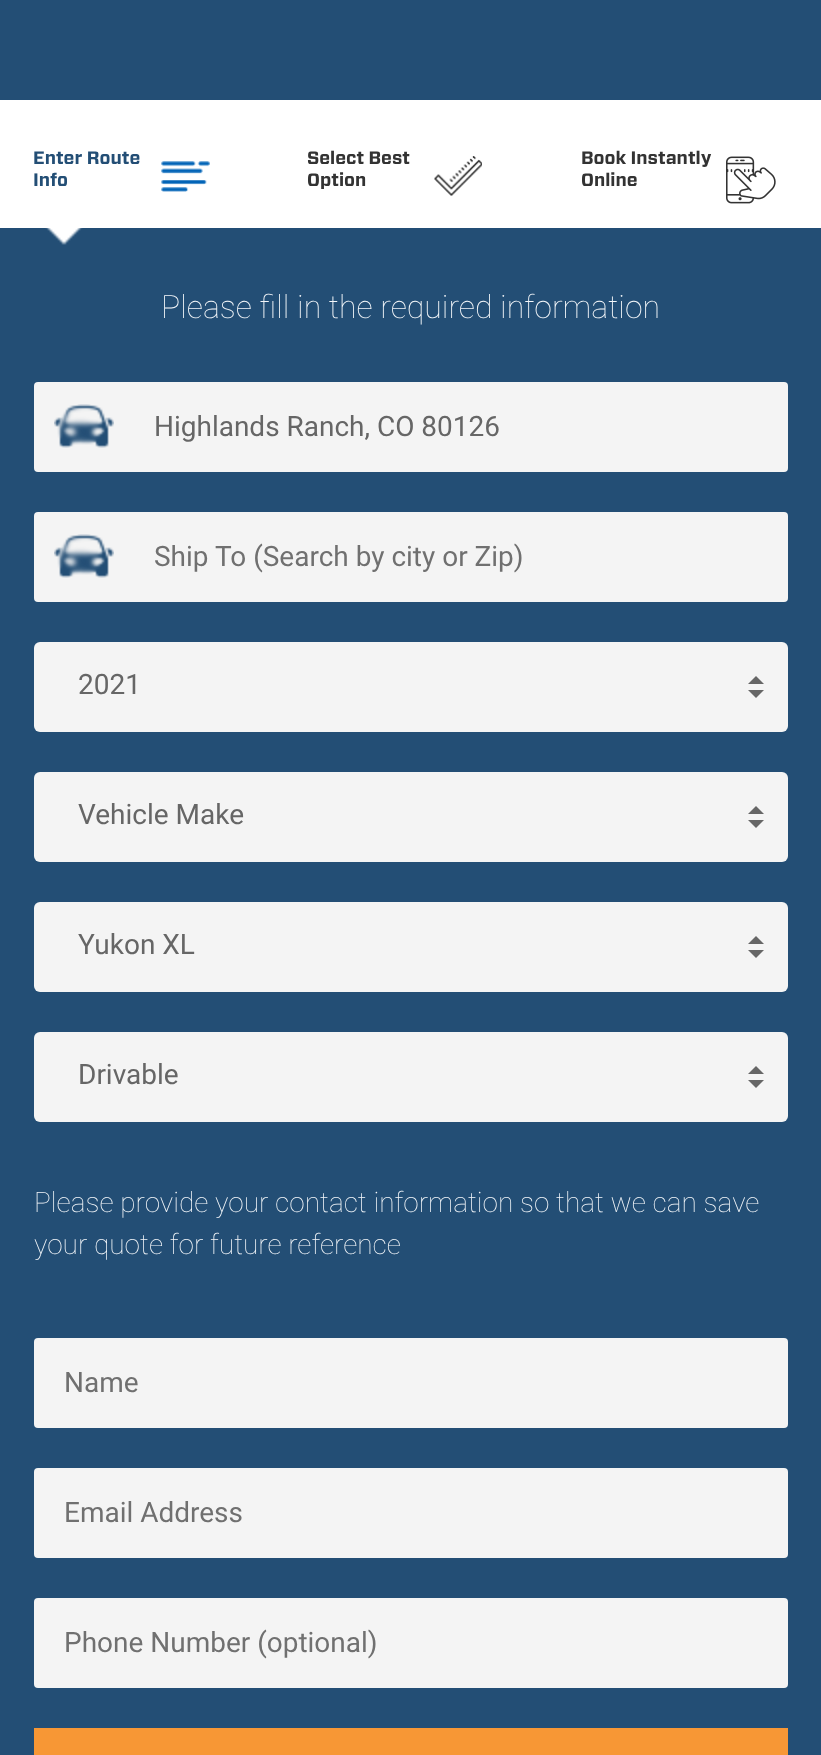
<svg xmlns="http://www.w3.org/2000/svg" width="821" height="1755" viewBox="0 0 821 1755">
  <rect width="100%" height="100%" fill="#234e75"/>
  <rect x="0" y="100" width="821" height="128" fill="#ffffff"/>
  <text x="33" y="164" font-family="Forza" font-size="18" font-weight="bold" fill="#234e75">Enter Route</text>
  <text x="33" y="186" font-family="Forza" font-size="18" font-weight="bold" fill="#234e75">Info</text>
  <image x="45" y="228" width="38" height="17" href="img1.png"/>
  <image x="161" y="161" width="49" height="31" href="img2.png"/>
  <text x="307" y="164" font-family="Forza" font-size="18" font-weight="bold" fill="#333333">Select Best</text>
  <text x="307" y="186" font-family="Forza" font-size="18" font-weight="bold" fill="#333333">Option</text>
  <image x="434" y="156" width="48" height="40" href="img3.png"/>
  <text x="581" y="164" font-family="Forza" font-size="18" font-weight="bold" fill="#333333">Book Instantly</text>
  <text x="581" y="186" font-family="Forza" font-size="18" font-weight="bold" fill="#333333">Online</text>
  <image x="726" y="156" width="50" height="48" href="img4.png"/>
  <text x="161" y="318" font-family="Roboto" font-size="32" font-weight="100" fill="#f4f7fa">Please fill in the required information</text>
  <rect x="34" y="382" width="754" height="90" rx="4" fill="#f4f4f4"/>
  <image x="54" y="404" width="60" height="44" href="img5.png"/>
  <text x="154" y="436" font-family="Roboto" font-size="28" fill="#666666">Highlands Ranch, CO 80126</text>
  <rect x="34" y="512" width="754" height="90" rx="4" fill="#f4f4f4"/>
  <image x="54" y="534" width="60" height="44" href="img5.png"/>
  <text x="154" y="566" font-family="Roboto" font-size="28" fill="#707070">Ship To (Search by city or Zip)</text>
  <rect x="34" y="642" width="754" height="90" rx="6" fill="#f4f4f4"/>
  <text x="78" y="694" font-family="'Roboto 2'" font-size="28" fill="#666666">2021</text>
  <path d="M764 684H748L756 676ZM748 690H764L756 698Z" fill="#666666"/>
  <rect x="34" y="772" width="754" height="90" rx="6" fill="#f4f4f4"/>
  <text x="78" y="824" font-family="'Roboto 2'" font-size="28" fill="#666666">Vehicle Make</text>
  <path d="M764 814H748L756 806ZM748 820H764L756 828Z" fill="#666666"/>
  <rect x="34" y="902" width="754" height="90" rx="6" fill="#f4f4f4"/>
  <text x="78" y="954" font-family="'Roboto 2'" font-size="28" fill="#666666">Yukon XL</text>
  <path d="M764 944H748L756 936ZM748 950H764L756 958Z" fill="#666666"/>
  <rect x="34" y="1032" width="754" height="90" rx="6" fill="#f4f4f4"/>
  <text x="78" y="1084" font-family="'Roboto 2'" font-size="28" fill="#666666">Drivable</text>
  <path d="M764 1074H748L756 1066ZM748 1080H764L756 1088Z" fill="#666666"/>
  <text x="34" y="1212" font-family="Roboto" font-size="28" font-weight="100" fill="#f4f7fa">Please provide your contact information so that we can save</text>
  <text x="34" y="1254" font-family="Roboto" font-size="28" font-weight="100" fill="#f4f7fa">your quote for future reference</text>
  <rect x="34" y="1338" width="754" height="90" rx="4" fill="#f4f4f4"/>
  <text x="64" y="1392" font-family="Roboto" font-size="28" fill="#707070">Name</text>
  <rect x="34" y="1468" width="754" height="90" rx="4" fill="#f4f4f4"/>
  <text x="64" y="1522" font-family="Roboto" font-size="28" fill="#707070">Email Address</text>
  <rect x="34" y="1598" width="754" height="90" rx="4" fill="#f4f4f4"/>
  <text x="64" y="1652" font-family="Roboto" font-size="28" fill="#707070">Phone Number (optional)</text>
  <rect x="34" y="1728" width="754" height="27" fill="#f79735"/>
</svg>
